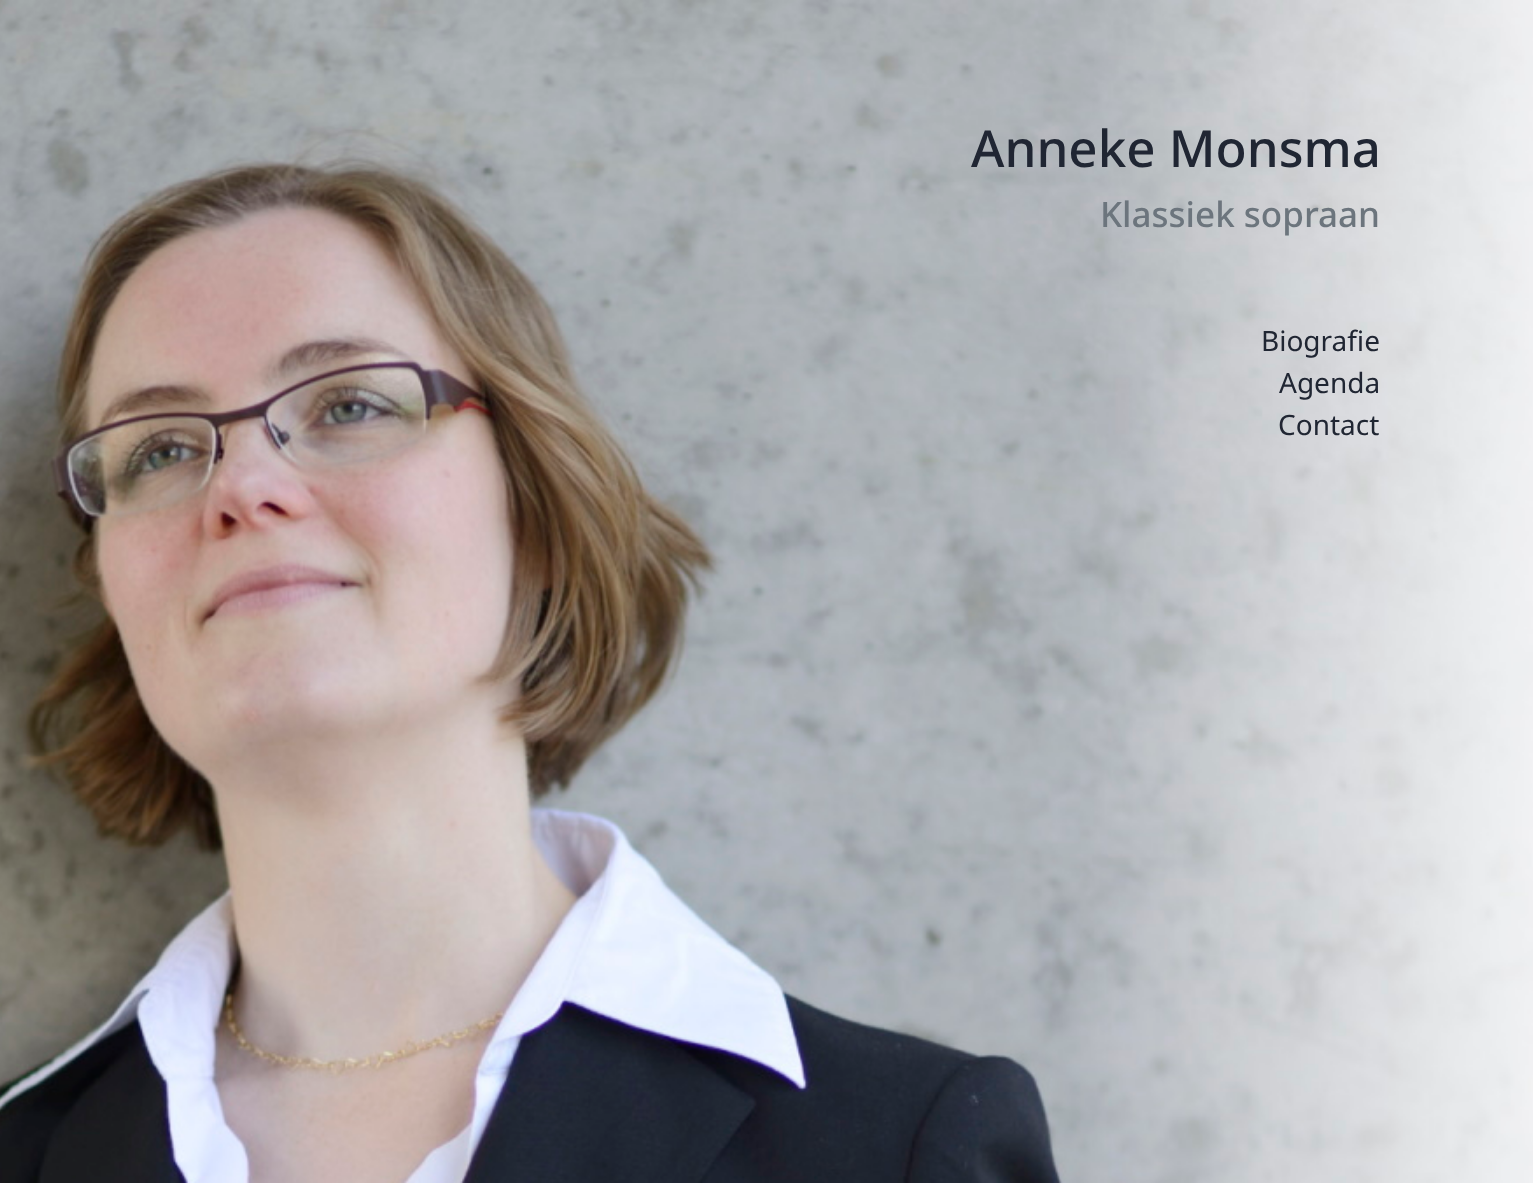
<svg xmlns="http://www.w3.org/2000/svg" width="1533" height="1183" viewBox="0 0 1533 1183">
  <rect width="100%" height="100%" fill="#ffffff"/>
  <image x="0" y="0" width="1533" height="1183" href="img1.png"/>
  <text x="971" y="167" font-family="Noto Sans" font-size="51" font-weight="500" fill="#202633">Anneke Monsma</text>
  <text x="1100" y="227" font-family="Noto Sans" font-size="35" font-weight="500" fill="#6c757d">Klassiek sopraan</text>
  <text x="1261" y="351" font-family="Noto Sans" font-size="28" fill="#202633">Biografie</text>
  <text x="1279" y="393" font-family="Noto Sans" font-size="28" fill="#202633">Agenda</text>
  <text x="1278" y="435" font-family="Noto Sans" font-size="28" fill="#202633">Contact</text>
</svg>
